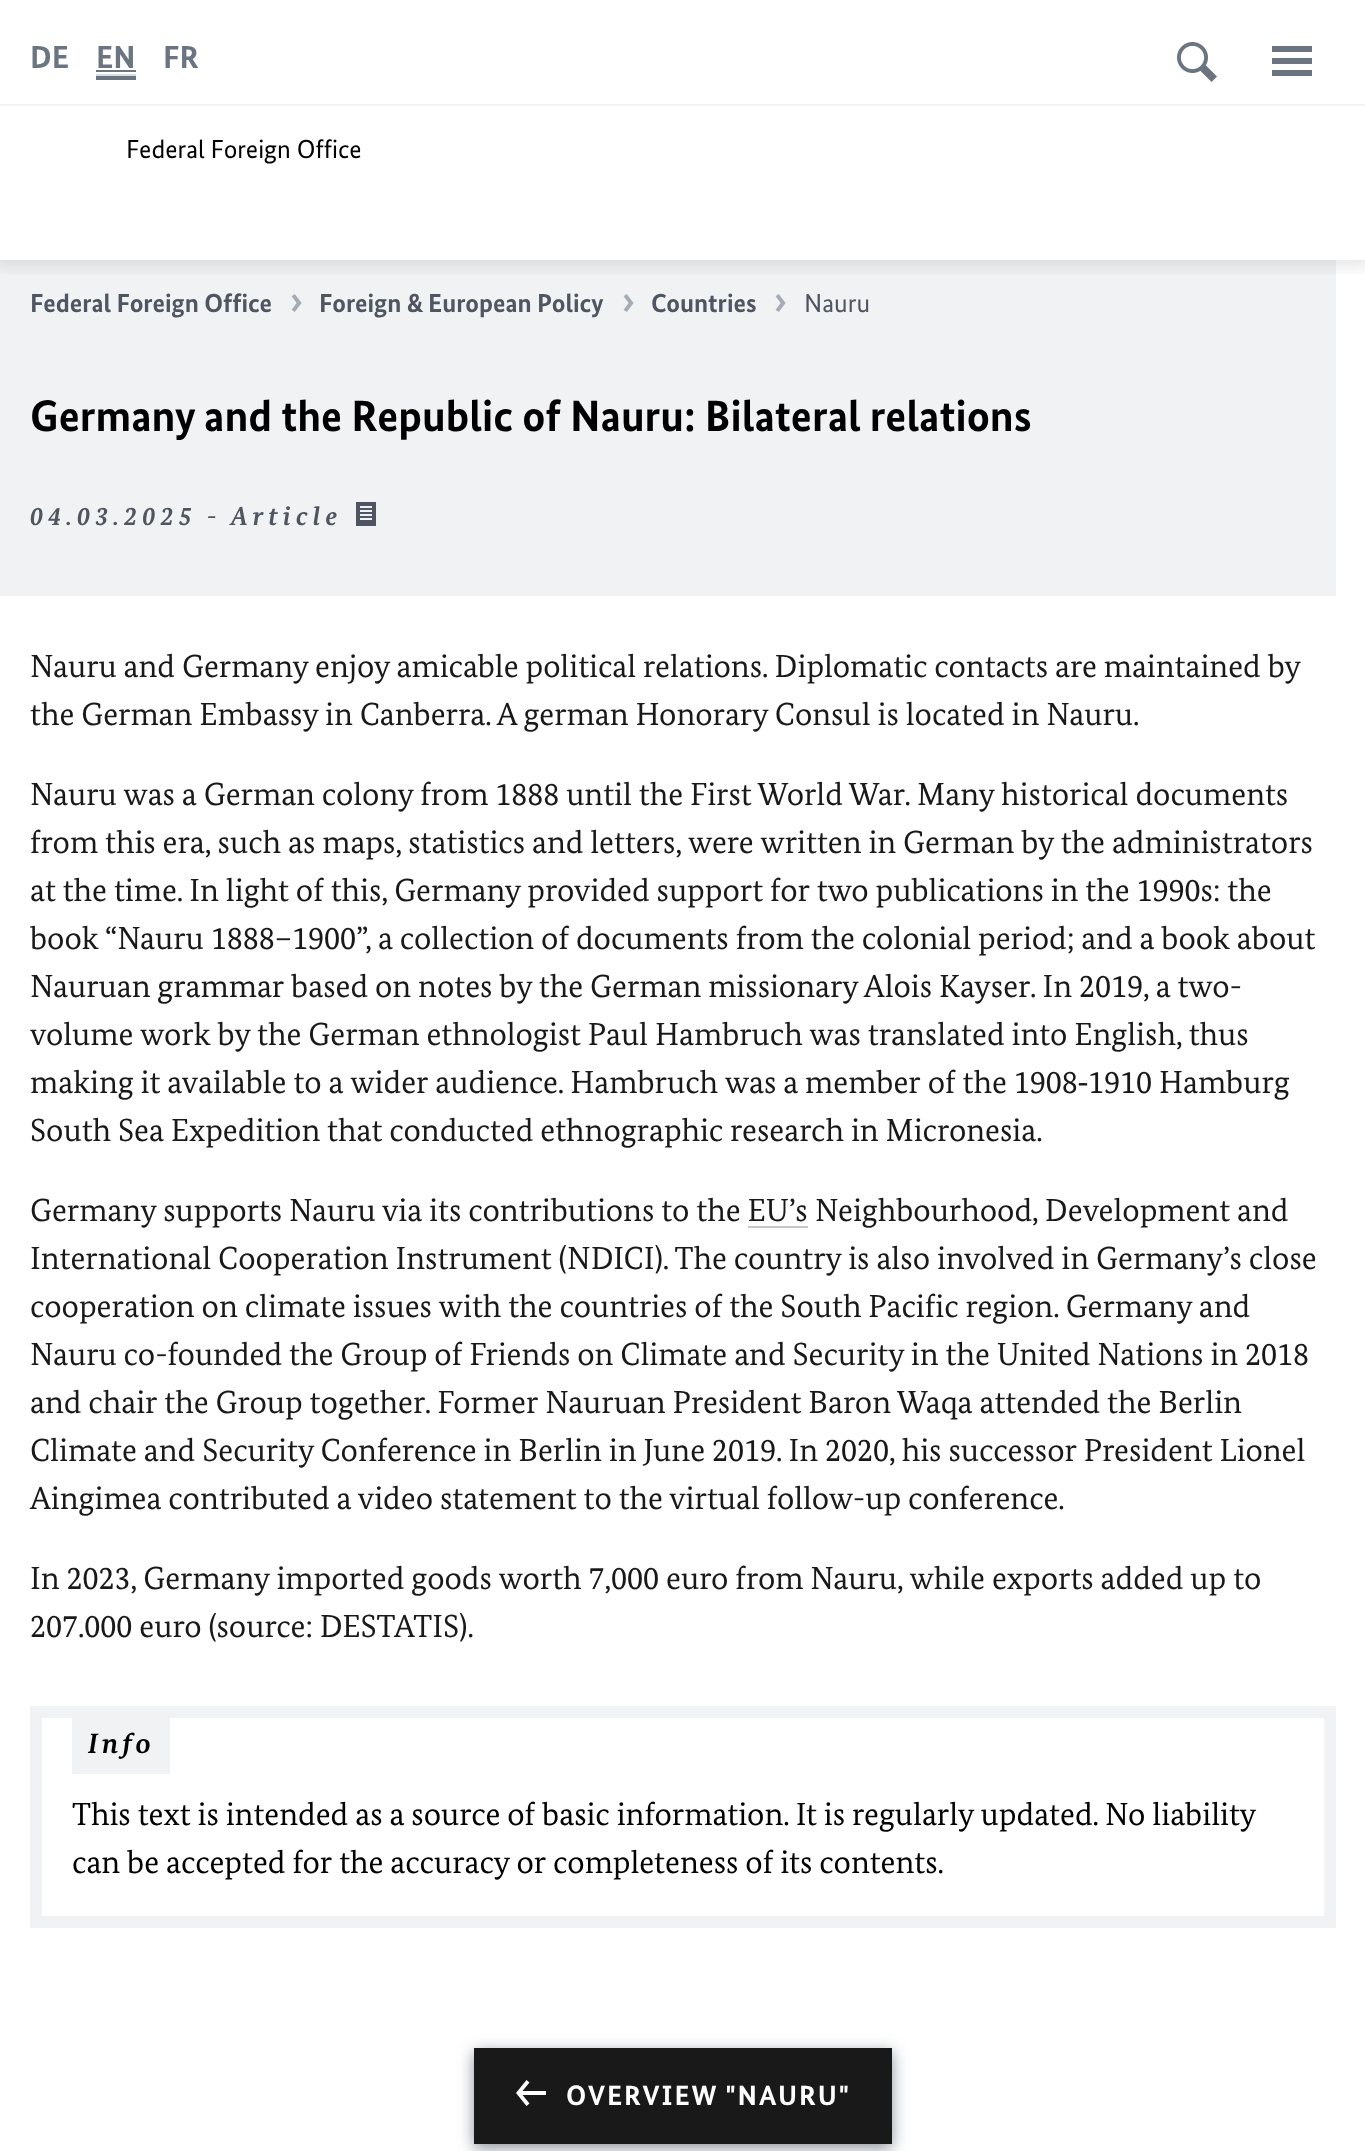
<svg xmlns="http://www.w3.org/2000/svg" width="1365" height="2151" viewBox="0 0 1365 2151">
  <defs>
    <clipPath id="clip1"><rect x="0" y="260" width="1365" height="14"/></clipPath>
    <filter id="blur1" x="-50%" y="-200%" width="200%" height="500%"><feGaussianBlur stdDeviation="9"/></filter>
    <filter id="blur2" x="-50%" y="-200%" width="200%" height="500%"><feGaussianBlur stdDeviation="8"/></filter>
  </defs>
  <rect width="100%" height="100%" fill="#ffffff"/>
  <rect x="0" y="260" width="1336" height="336" fill="#f1f2f3"/>
  <g clip-path="url(#clip1)">
    <rect x="-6" y="-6" width="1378" height="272" fill="#000000" fill-opacity="0.1" filter="url(#blur1)"/>
  </g>
  <text x="30" y="68" font-family="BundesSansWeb" font-size="32" font-weight="bold" fill="#6b7581">DE</text>
  <text x="96" y="68" font-family="BundesSansWeb" font-size="32" font-weight="bold" fill="#6b7581">EN</text>
  <rect x="96" y="70" width="40" height="2" fill="#6b7581"/>
  <rect x="96" y="74" width="40" height="2" fill="#dadde0"/>
  <rect x="96" y="76" width="40" height="4" fill="#6b7581"/>
  <text x="163" y="68" font-family="BundesSansWeb" font-size="32" font-weight="bold" fill="#6b7581">FR</text>
  <image x="1177" y="42" width="40" height="40" href="img1.png"/>
  <rect x="1272" y="58" width="40" height="6" fill="#6b7581"/>
  <rect x="1272" y="46" width="40" height="6" fill="#6b7581"/>
  <rect x="1272" y="70" width="40" height="6" fill="#6b7581"/>
  <rect x="0" y="104" width="1365" height="2" fill="#f1f2f3"/>
  <text x="126" y="158" font-family="BundesSansWeb" font-size="26" fill="#000000">Federal Foreign Office</text>
  <text x="30" y="312" font-family="BundesSansWeb" font-size="26" font-weight="bold" fill="#4f5661">Federal Foreign Office</text>
  <image x="291" y="294" width="11" height="18" href="img2.png"/>
  <text x="319" y="312" font-family="BundesSansWeb" font-size="26" font-weight="bold" fill="#4f5661">Foreign &amp; European Policy</text>
  <image x="623" y="294" width="11" height="18" href="img2.png"/>
  <text x="651" y="312" font-family="BundesSansWeb" font-size="26" font-weight="bold" fill="#4f5661">Countries</text>
  <image x="775" y="294" width="11" height="18" href="img2.png"/>
  <text x="804" y="312" font-family="BundesSansWeb" font-size="26" fill="#4f5661">Nauru</text>
  <text x="30" y="431" font-family="BundesSansWeb" font-size="44" font-weight="bold" fill="#000000">Germany and the Republic of Nauru: Bilateral relations</text>
  <text x="30" y="525" font-family="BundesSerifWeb" font-size="26" font-weight="bold" font-style="italic" letter-spacing="5.25" fill="#4f5661">04.03.2025 - Article</text>
  <image x="356" y="502" width="20" height="24" href="img3.png"/>
  <text x="30" y="677" font-family="BundesSerifWeb" font-size="32" fill="#191919">Nauru and Germany enjoy amicable political relations. Diplomatic contacts are maintained by</text>
  <text x="30" y="725" font-family="BundesSerifWeb" font-size="32" fill="#191919">the German Embassy in Canberra. A german Honorary Consul is located in Nauru.</text>
  <text x="30" y="805" font-family="BundesSerifWeb" font-size="32" fill="#191919">Nauru was a German colony from 1888 until the First World War. Many historical documents</text>
  <text x="30" y="853" font-family="BundesSerifWeb" font-size="32" fill="#191919">from this era, such as maps, statistics and letters, were written in German by the administrators</text>
  <text x="30" y="901" font-family="BundesSerifWeb" font-size="32" fill="#191919">at the time. In light of this, Germany provided support for two publications in the 1990s: the</text>
  <text x="30" y="949" font-family="BundesSerifWeb" font-size="32" fill="#191919">book “Nauru 1888–1900”, a collection of documents from the colonial period; and a book about</text>
  <text x="30" y="997" font-family="BundesSerifWeb" font-size="32" fill="#191919">Nauruan grammar based on notes by the German missionary Alois Kayser. In 2019, a two-</text>
  <text x="30" y="1045" font-family="BundesSerifWeb" font-size="32" fill="#191919">volume work by the German ethnologist Paul Hambruch was translated into English, thus</text>
  <text x="30" y="1093" font-family="BundesSerifWeb" font-size="32" fill="#191919">making it available to a wider audience. Hambruch was a member of the 1908</text>
  <text x="1078" y="1093" font-family="Noto Serif" font-size="32" fill="#191919">‑</text>
  <text x="1088" y="1093" font-family="BundesSerifWeb" font-size="32" fill="#191919">1910 Hamburg</text>
  <text x="30" y="1141" font-family="BundesSerifWeb" font-size="32" fill="#191919">South Sea Expedition that conducted ethnographic research in Micronesia.</text>
  <text x="30" y="1221" font-family="BundesSerifWeb" font-size="32" fill="#191919">Germany supports Nauru via its contributions to the EU’s</text>
  <text x="815" y="1221" font-family="BundesSerifWeb" font-size="32" fill="#191919">Neighbourhood, Development and</text>
  <rect x="748" y="1226" width="60" height="2" fill="#c6c6c6"/>
  <text x="30" y="1269" font-family="BundesSerifWeb" font-size="32" fill="#191919">International Cooperation Instrument (NDICI). The country is also involved in Germany’s close</text>
  <text x="30" y="1317" font-family="BundesSerifWeb" font-size="32" fill="#191919">cooperation on climate issues with the countries of the South Pacific region. Germany and</text>
  <text x="30" y="1365" font-family="BundesSerifWeb" font-size="32" fill="#191919">Nauru co-founded the Group of Friends on Climate and Security in the United Nations in 2018</text>
  <text x="30" y="1413" font-family="BundesSerifWeb" font-size="32" fill="#191919">and chair the Group together. Former Nauruan President Baron Waqa attended the Berlin</text>
  <text x="30" y="1461" font-family="BundesSerifWeb" font-size="32" fill="#191919">Climate and Security Conference in Berlin in June 2019. In 2020, his successor President Lionel</text>
  <text x="30" y="1509" font-family="BundesSerifWeb" font-size="32" fill="#191919">Aingimea contributed a video statement to the virtual follow-up conference.</text>
  <text x="30" y="1589" font-family="BundesSerifWeb" font-size="32" fill="#191919">In 2023, Germany imported goods worth 7,000 euro from Nauru, while exports added up to</text>
  <text x="30" y="1637" font-family="BundesSerifWeb" font-size="32" fill="#191919">207.000 euro (source: DESTATIS).</text>
  <rect x="36" y="1712" width="1294" height="210" fill="none" stroke="#f1f2f3" stroke-width="12"/>
  <rect x="72" y="1718" width="98" height="56" fill="#f1f2f3"/>
  <text x="88" y="1753" font-family="BundesSerifWeb" font-size="28" font-weight="bold" font-style="italic" letter-spacing="4" fill="#000000">Info</text>
  <text x="72" y="1825" font-family="BundesSerifWeb" font-size="32" fill="#000000">This text is intended as a source of basic information. It is regularly updated. No liability</text>
  <text x="72" y="1873" font-family="BundesSerifWeb" font-size="32" fill="#000000">can be accepted for the accuracy or completeness of its contents.</text>
  <rect x="474" y="2052" width="418" height="96" fill="#89919a" filter="url(#blur2)"/>
  <rect x="474" y="2048" width="418" height="96" fill="#191919"/>
  <path d="M526.5 2080L529.5 2082.5L522.5 2091H546V2095H522.5L529.5 2103.5L526.5 2106L516 2093" fill="#ffffff"/>
  <text x="566" y="2105" font-family="BundesSansWeb" font-size="28" font-weight="bold" letter-spacing="2" fill="#ffffff">OVERVIEW "NAURU"</text>
</svg>
